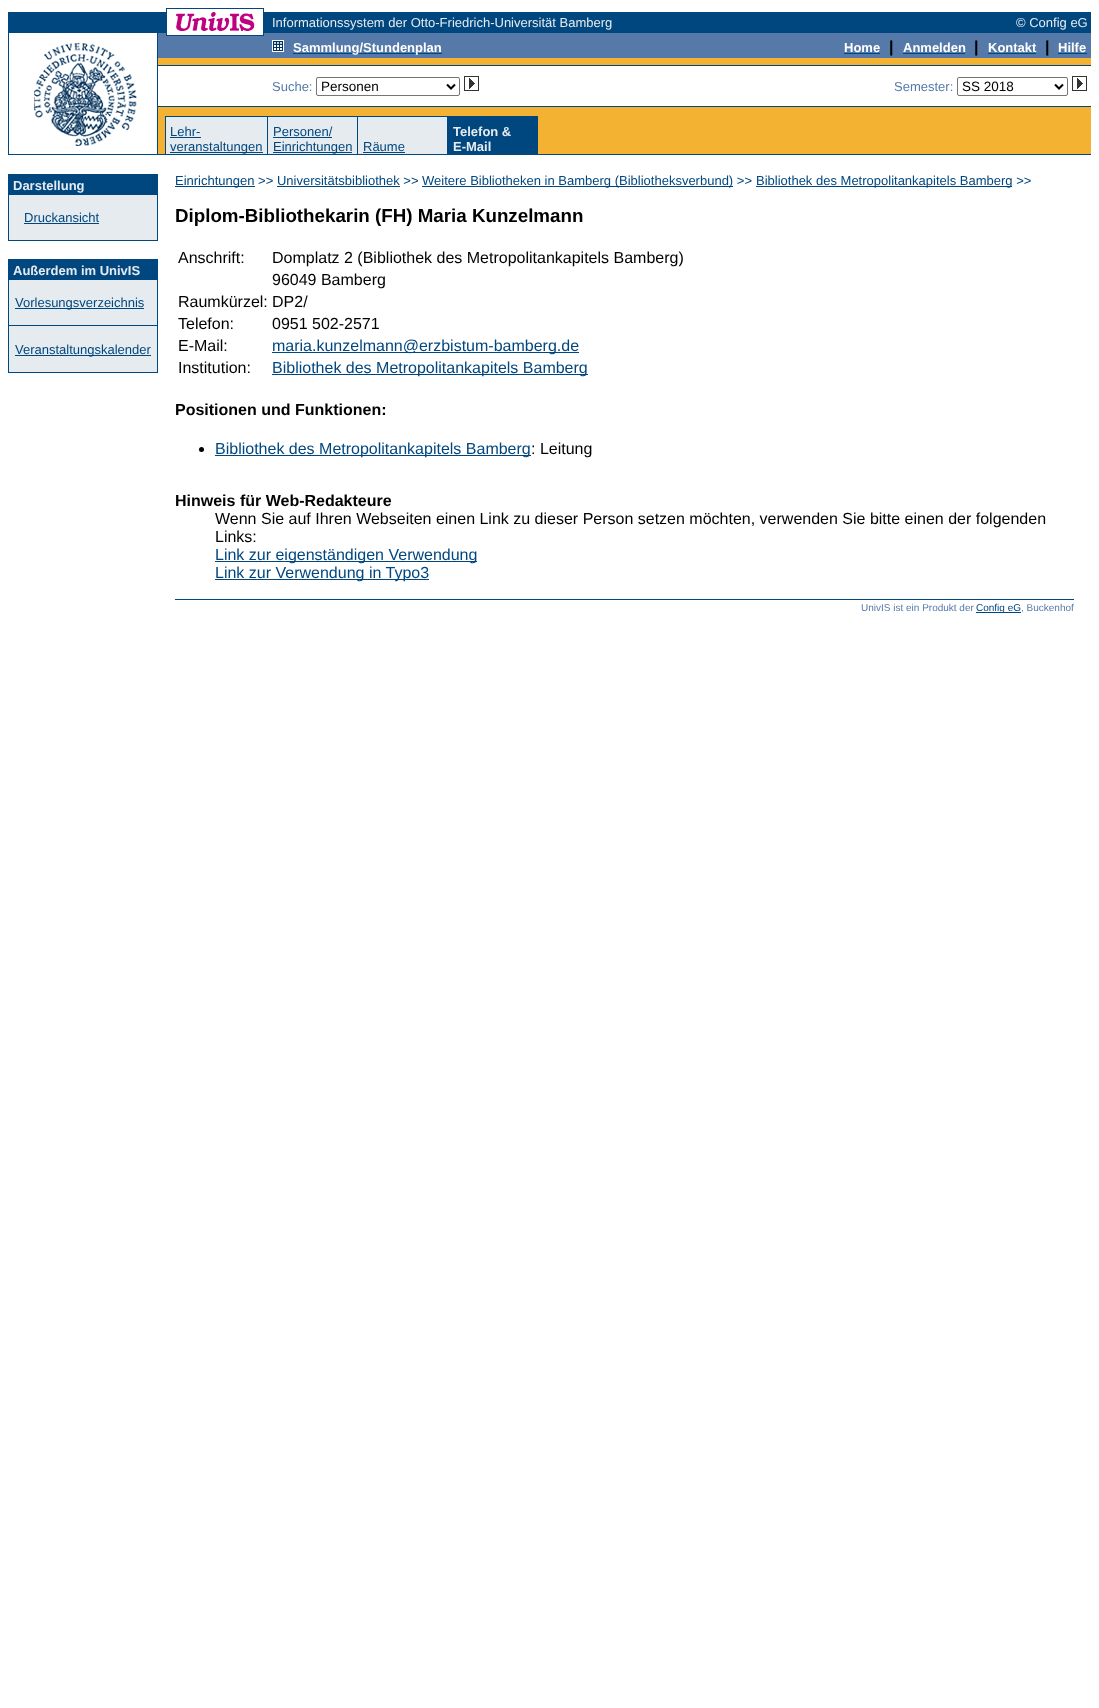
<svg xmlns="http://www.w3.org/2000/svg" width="1099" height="1708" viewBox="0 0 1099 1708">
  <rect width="100%" height="100%" fill="#ffffff"/>
  <rect x="166" y="8" width="98" height="1" fill="#00467f"/>
  <rect x="166" y="9" width="1" height="3" fill="#00467f"/>
  <rect x="263" y="9" width="1" height="23" fill="#00467f"/>
  <rect x="8" y="12" width="159" height="20" fill="#00467f"/>
  <image x="176" y="12" width="79" height="19" href="img1.png"/>
  <rect x="264" y="12" width="827" height="20" fill="#00467f"/>
  <text x="272" y="27" font-family="Liberation Sans" font-size="13" fill="#e5ebef">Informationssystem der Otto-Friedrich-Universität Bamberg</text>
  <text x="1016" y="27" font-family="Liberation Sans" font-size="13" fill="#e5ebef">© Config eG</text>
  <rect x="8" y="32" width="1083" height="1" fill="#00467f"/>
  <rect x="167" y="32" width="96" height="1" fill="#ffffff"/>
  <rect x="8" y="33" width="1" height="122" fill="#00467f"/>
  <image x="34" y="43" width="103" height="103" href="img2.png"/>
  <rect x="157" y="33" width="1" height="121" fill="#00467f"/>
  <rect x="158" y="58" width="933" height="96" fill="#f3b231"/>
  <rect x="158" y="33" width="933" height="2" fill="#557aa9"/>
  <rect x="166" y="33" width="1" height="2" fill="#00467f"/>
  <rect x="167" y="33" width="96" height="2" fill="#ffffff"/>
  <rect x="263" y="33" width="1" height="2" fill="#00467f"/>
  <rect x="158" y="35" width="933" height="2" fill="#557aa9"/>
  <rect x="166" y="35" width="98" height="1" fill="#00467f"/>
  <rect x="158" y="37" width="933" height="21" fill="#557aa9"/>
  <image x="272" y="40" width="12" height="12" href="img3.png"/>
  <rect x="293" y="53" width="149" height="1" fill="#00467f"/>
  <text x="293" y="52" font-family="Liberation Sans" font-size="13" font-weight="bold" fill="#ffffff">Sammlung/Stundenplan</text>
  <text x="844" y="52" font-family="Liberation Sans" font-size="13" font-weight="bold" fill="#ffffff">Home</text>
  <rect x="844" y="53" width="36" height="1" fill="#00467f"/>
  <text x="889" y="52" font-family="Liberation Sans" font-size="16" font-weight="bold" fill="#000000">|</text>
  <text x="903" y="52" font-family="Liberation Sans" font-size="13" font-weight="bold" fill="#ffffff">Anmelden</text>
  <rect x="903" y="53" width="62" height="1" fill="#00467f"/>
  <text x="974" y="52" font-family="Liberation Sans" font-size="16" font-weight="bold" fill="#000000">|</text>
  <text x="988" y="52" font-family="Liberation Sans" font-size="13" font-weight="bold" fill="#ffffff">Kontakt</text>
  <rect x="988" y="53" width="48" height="1" fill="#00467f"/>
  <text x="1045" y="52" font-family="Liberation Sans" font-size="16" font-weight="bold" fill="#000000">|</text>
  <text x="1058" y="52" font-family="Liberation Sans" font-size="13" font-weight="bold" fill="#ffffff">Hilfe</text>
  <rect x="1058" y="53" width="29" height="1" fill="#00467f"/>
  <rect x="158" y="65" width="933" height="1" fill="#00467f"/>
  <rect x="158" y="66" width="933" height="40" fill="#ffffff"/>
  <text x="272" y="91" font-family="Liberation Sans" font-size="13" fill="#557aa9">Suche:</text>
  <rect x="316.5" y="77.5" width="143" height="18" rx="1.5" fill="none" stroke="#767676"/>
  <path d="M447 84.5L451 88.5L455 84.5" fill="none" stroke="#000000" stroke-width="2"/>
  <text x="321" y="91" font-family="Liberation Sans" font-size="13.5" fill="#000000">Personen</text>
  <image x="464" y="76" width="15" height="15" href="img4.png"/>
  <text x="894" y="91" font-family="Liberation Sans" font-size="13" fill="#557aa9">Semester:</text>
  <rect x="957.5" y="77.5" width="110" height="18" rx="1.5" fill="none" stroke="#767676"/>
  <path d="M1055 84.5L1059 88.5L1063 84.5" fill="none" stroke="#000000" stroke-width="2"/>
  <text x="962" y="91" font-family="Liberation Sans" font-size="13.5" fill="#000000">SS 2018</text>
  <image x="1072" y="76" width="15" height="15" href="img4.png"/>
  <rect x="158" y="106" width="933" height="1" fill="#00467f"/>
  <rect x="165" y="116" width="373" height="1" fill="#00467f"/>
  <rect x="165" y="117" width="1" height="37" fill="#00467f"/>
  <rect x="166" y="117" width="101" height="37" fill="#e5ebef"/>
  <rect x="267" y="117" width="1" height="37" fill="#00467f"/>
  <rect x="268" y="117" width="89" height="37" fill="#e5ebef"/>
  <rect x="357" y="117" width="1" height="37" fill="#00467f"/>
  <rect x="358" y="117" width="89" height="37" fill="#e5ebef"/>
  <rect x="447" y="117" width="91" height="37" fill="#00467f"/>
  <text x="170" y="136" font-family="Liberation Sans" font-size="13" fill="#00467f">Lehr-</text>
  <rect x="170" y="137" width="31" height="1" fill="#00467f"/>
  <rect x="170" y="152" width="93" height="1" fill="#00467f"/>
  <text x="170" y="151" font-family="Liberation Sans" font-size="13" fill="#00467f">veranstaltungen</text>
  <text x="273" y="136" font-family="Liberation Sans" font-size="13" fill="#00467f">Personen/</text>
  <rect x="273" y="137" width="59" height="1" fill="#00467f"/>
  <rect x="273" y="152" width="79" height="1" fill="#00467f"/>
  <text x="273" y="151" font-family="Liberation Sans" font-size="13" fill="#00467f">Einrichtungen</text>
  <text x="363" y="151" font-family="Liberation Sans" font-size="13" fill="#00467f">Räume</text>
  <rect x="363" y="152" width="42" height="1" fill="#00467f"/>
  <text x="453" y="136" font-family="Liberation Sans" font-size="13" font-weight="bold" fill="#e5ebef">Telefon &amp;</text>
  <text x="453" y="151" font-family="Liberation Sans" font-size="13" font-weight="bold" fill="#e5ebef">E-Mail</text>
  <rect x="9" y="154" width="1082" height="1" fill="#00467f"/>
  <rect x="8" y="174" width="1" height="67" fill="#00467f"/>
  <rect x="9" y="174" width="148" height="21" fill="#00467f"/>
  <rect x="157" y="174" width="1" height="67" fill="#00467f"/>
  <text x="13" y="190" font-family="Liberation Sans" font-size="13" font-weight="bold" fill="#e5ebef">Darstellung</text>
  <rect x="9" y="195" width="148" height="45" fill="#e5ebef"/>
  <text x="24" y="222" font-family="Liberation Sans" font-size="13" fill="#00467f">Druckansicht</text>
  <rect x="24" y="223" width="75" height="1" fill="#00467f"/>
  <rect x="9" y="240" width="148" height="1" fill="#00467f"/>
  <rect x="8" y="259" width="1" height="114" fill="#00467f"/>
  <rect x="9" y="259" width="148" height="21" fill="#00467f"/>
  <rect x="157" y="259" width="1" height="114" fill="#00467f"/>
  <text x="13" y="275" font-family="Liberation Sans" font-size="13" font-weight="bold" fill="#e5ebef">Außerdem im UnivIS</text>
  <rect x="9" y="280" width="148" height="45" fill="#e5ebef"/>
  <rect x="15" y="308" width="129" height="1" fill="#00467f"/>
  <text x="15" y="307" font-family="Liberation Sans" font-size="13" fill="#00467f">Vorlesungsverzeichnis</text>
  <rect x="9" y="325" width="148" height="1" fill="#00467f"/>
  <rect x="9" y="326" width="148" height="1" fill="#e5ebef"/>
  <rect x="9" y="327" width="148" height="45" fill="#e5ebef"/>
  <rect x="15" y="355" width="136" height="1" fill="#00467f"/>
  <text x="15" y="354" font-family="Liberation Sans" font-size="13" fill="#00467f">Veranstaltungskalender</text>
  <rect x="9" y="372" width="148" height="1" fill="#00467f"/>
  <rect x="175" y="186" width="80" height="1" fill="#00467f"/>
  <text x="175" y="185" font-family="Liberation Sans" font-size="13" fill="#00467f">Einrichtungen &gt;&gt; Universitätsbibliothek &gt;&gt;</text>
  <rect x="277" y="186" width="123" height="1" fill="#00467f"/>
  <rect x="422" y="186" width="311" height="1" fill="#00467f"/>
  <text x="422" y="185" font-family="Liberation Sans" font-size="13" fill="#00467f">Weitere Bibliotheken in Bamberg (Bibliotheksverbund) &gt;&gt;</text>
  <rect x="756" y="186" width="256" height="1" fill="#00467f"/>
  <text x="756" y="185" font-family="Liberation Sans" font-size="13" fill="#00467f">Bibliothek des Metropolitankapitels Bamberg &gt;&gt;</text>
  <text x="175" y="222" font-family="Liberation Sans" font-size="18.75" font-weight="bold" fill="#000000">Diplom-Bibliothekarin (FH) Maria Kunzelmann</text>
  <text x="178" y="263" font-family="Liberation Sans" font-size="16" fill="#000000">Anschrift:</text>
  <text x="272" y="263" font-family="Liberation Sans" font-size="16" fill="#000000">Domplatz 2 (Bibliothek des Metropolitankapitels Bamberg)</text>
  <text x="272" y="285" font-family="Liberation Sans" font-size="16" fill="#000000">96049 Bamberg</text>
  <text x="178" y="307" font-family="Liberation Sans" font-size="16" fill="#000000">Raumkürzel:</text>
  <text x="272" y="307" font-family="Liberation Sans" font-size="16" fill="#000000">DP2/</text>
  <text x="178" y="329" font-family="Liberation Sans" font-size="16" fill="#000000">Telefon:</text>
  <text x="272" y="329" font-family="Liberation Sans" font-size="16" fill="#000000">0951 502-2571</text>
  <text x="178" y="351" font-family="Liberation Sans" font-size="16" fill="#000000">E-Mail:</text>
  <rect x="272" y="352" width="307" height="1" fill="#00467f"/>
  <text x="272" y="351" font-family="Liberation Sans" font-size="16" fill="#00467f">maria.kunzelmann@erzbistum-bamberg.de</text>
  <text x="178" y="373" font-family="Liberation Sans" font-size="16" fill="#000000">Institution:</text>
  <rect x="272" y="374" width="316" height="1" fill="#00467f"/>
  <text x="272" y="373" font-family="Liberation Sans" font-size="16" fill="#00467f">Bibliothek des Metropolitankapitels Bamberg</text>
  <text x="175" y="415" font-family="Liberation Sans" font-size="16" font-weight="bold" fill="#000000">Positionen und Funktionen:</text>
  <circle cx="201.5" cy="449.5" r="2.5" fill="#000000"/>
  <rect x="215" y="455" width="316" height="1" fill="#00467f"/>
  <text x="215" y="454" font-family="Liberation Sans" font-size="16" fill="#00467f">Bibliothek des Metropolitankapitels Bamberg</text>
  <text x="531" y="454" font-family="Liberation Sans" font-size="16" fill="#000000">: Leitung</text>
  <text x="175" y="506" font-family="Liberation Sans" font-size="16" font-weight="bold" fill="#000000">Hinweis für Web-Redakteure</text>
  <text x="215" y="524" font-family="Liberation Sans" font-size="16" fill="#000000">Wenn Sie auf Ihren Webseiten einen Link zu dieser Person setzen möchten, verwenden Sie bitte einen der folgenden</text>
  <text x="215" y="542" font-family="Liberation Sans" font-size="16" fill="#000000">Links:</text>
  <rect x="215" y="561" width="262" height="1" fill="#00467f"/>
  <text x="215" y="560" font-family="Liberation Sans" font-size="16" fill="#00467f">Link zur eigenständigen Verwendung</text>
  <rect x="215" y="579" width="214" height="1" fill="#00467f"/>
  <text x="215" y="578" font-family="Liberation Sans" font-size="16" fill="#00467f">Link zur Verwendung in Typo3</text>
  <rect x="175" y="599" width="899" height="1" fill="#00467f"/>
  <text x="861" y="611" font-family="Liberation Sans" font-size="10" fill="#557aa9">UnivIS ist ein Produkt der</text>
  <rect x="976" y="612" width="45" height="1" fill="#00467f"/>
  <text x="976" y="611" font-family="Liberation Sans" font-size="10" fill="#00467f">Config eG</text>
  <text x="1021" y="611" font-family="Liberation Sans" font-size="10" fill="#557aa9">, Buckenhof</text>
</svg>
